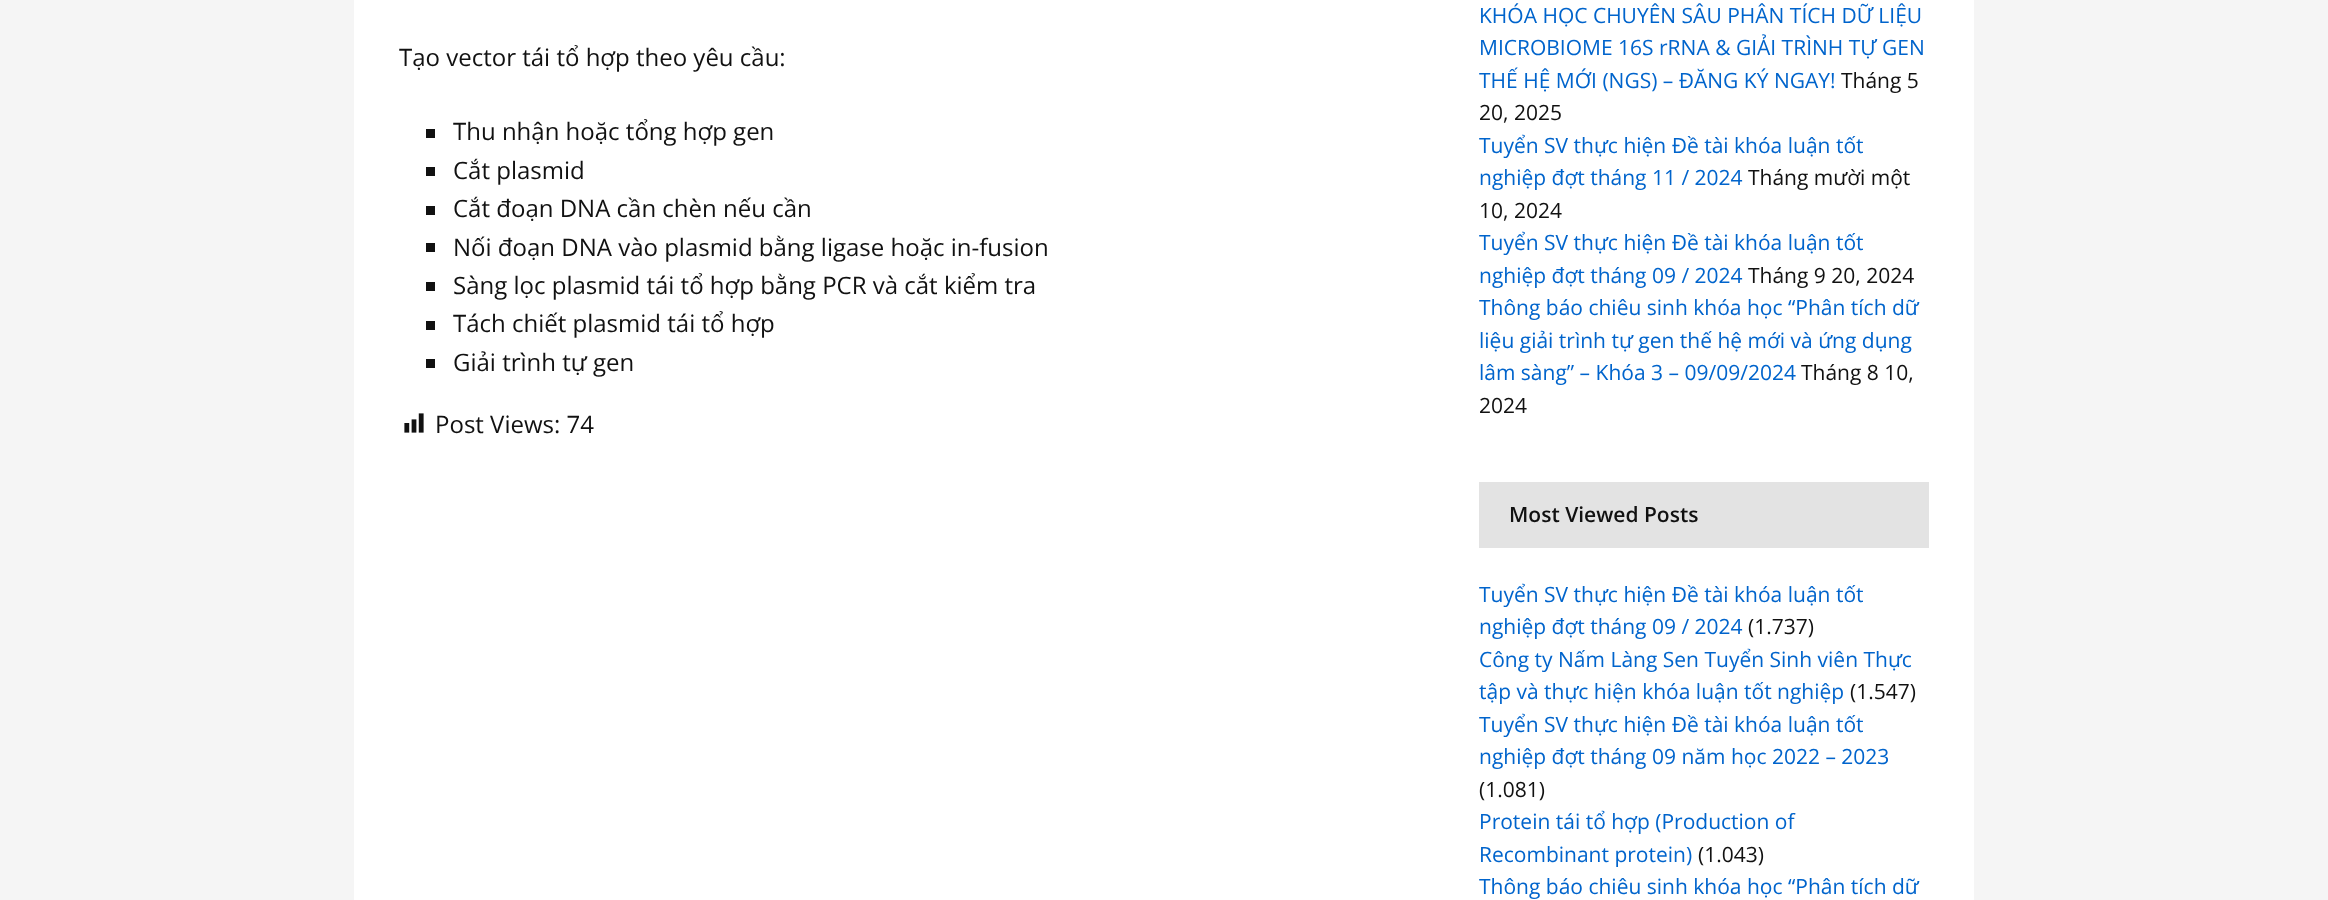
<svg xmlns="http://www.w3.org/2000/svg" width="2328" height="900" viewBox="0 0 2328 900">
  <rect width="100%" height="100%" fill="rgb(245,245,245)"/>
  <rect x="354" y="0" width="1620" height="900" fill="rgb(255,255,255)"/>
  <text x="399" y="66" font-family="Open Sans" font-size="24" fill="rgb(17,17,17)">Tạo vector tái tổ hợp theo yêu cầu:</text>
  <rect x="426" y="129" width="9" height="9" fill="rgb(17,17,17)"/>
  <text x="453" y="140" font-family="Open Sans" font-size="24" fill="rgb(17,17,17)">Thu nhận hoặc tổng hợp gen</text>
  <rect x="426" y="167" width="9" height="9" fill="rgb(17,17,17)"/>
  <text x="453" y="179" font-family="Open Sans" font-size="24" fill="rgb(17,17,17)">Cắt plasmid</text>
  <rect x="426" y="206" width="9" height="9" fill="rgb(17,17,17)"/>
  <text x="453" y="217" font-family="Open Sans" font-size="24" fill="rgb(17,17,17)">Cắt đoạn DNA cần chèn nếu cần</text>
  <rect x="426" y="243" width="9" height="9" fill="rgb(17,17,17)"/>
  <text x="453" y="256" font-family="Open Sans" font-size="24" fill="rgb(17,17,17)">Nối đoạn DNA vào plasmid bằng ligase hoặc in-fusion</text>
  <rect x="426" y="282" width="9" height="9" fill="rgb(17,17,17)"/>
  <text x="453" y="294" font-family="Open Sans" font-size="24" fill="rgb(17,17,17)">Sàng lọc plasmid tái tổ hợp bằng PCR và cắt kiểm tra</text>
  <rect x="426" y="321" width="9" height="9" fill="rgb(17,17,17)"/>
  <text x="453" y="332" font-family="Open Sans" font-size="24" fill="rgb(17,17,17)">Tách chiết plasmid tái tổ hợp</text>
  <rect x="426" y="359" width="9" height="9" fill="rgb(17,17,17)"/>
  <text x="453" y="371" font-family="Open Sans" font-size="24" fill="rgb(17,17,17)">Giải trình tự gen</text>
  <image x="404" y="413" width="20" height="20" href="pic1.png"/>
  <text x="435" y="433" font-family="Open Sans" font-size="24" fill="rgb(17,17,17)">Post Views: 74</text>
  <g font-family="Open Sans" font-size="21" fill="rgb(0,100,204)">
    <text>
      <tspan x="1479" y="23">KHÓA HỌC CHUYÊN SÂU PHÂN TÍCH DỮ LIỆU</tspan>
      <tspan x="1479" y="55">MICROBIOME 16S rRNA &amp; GIẢI TRÌNH TỰ GEN</tspan>
      <tspan x="1479" y="88">THẾ HỆ MỚI (NGS) – ĐĂNG KÝ NGAY!</tspan>
    </text>
  </g>
  <g font-family="Open Sans" font-size="21" fill="rgb(17,17,17)">
    <text x="1841" y="88">Tháng 5</text>
    <text x="1479" y="120">20, 2025</text>
  </g>
  <g font-family="Open Sans" font-size="21" fill="rgb(0,100,204)">
    <text>
      <tspan x="1479" y="153">Tuyển SV thực hiện Đề tài khóa luận tốt</tspan>
      <tspan x="1479" y="185">nghiệp đợt tháng 11 / 2024</tspan>
    </text>
  </g>
  <g font-family="Open Sans" font-size="21" fill="rgb(17,17,17)">
    <text x="1748" y="185">Tháng mười một</text>
    <text x="1479" y="218">10, 2024</text>
  </g>
  <g font-family="Open Sans" font-size="21" fill="rgb(0,100,204)">
    <text>
      <tspan x="1479" y="250">Tuyển SV thực hiện Đề tài khóa luận tốt</tspan>
      <tspan x="1479" y="283">nghiệp đợt tháng 09 / 2024</tspan>
    </text>
  </g>
  <text x="1748" y="283" font-family="Open Sans" font-size="21" fill="rgb(17,17,17)">Tháng 9 20, 2024</text>
  <g font-family="Open Sans" font-size="21" fill="rgb(0,100,204)">
    <text>
      <tspan x="1479" y="315">Thông báo chiêu sinh khóa học “Phân tích dữ</tspan>
      <tspan x="1479" y="348">liệu giải trình tự gen thế hệ mới và ứng dụng</tspan>
      <tspan x="1479" y="380">lâm sàng” – Khóa 3 – 09/09/2024</tspan>
    </text>
  </g>
  <g font-family="Open Sans" font-size="21" fill="rgb(17,17,17)">
    <text x="1801" y="380">Tháng 8 10,</text>
    <text x="1479" y="413">2024</text>
  </g>
  <rect x="1479" y="482" width="450" height="66" fill="rgb(227,227,227)"/>
  <text x="1509" y="522" font-family="Open Sans" font-size="21" font-weight="600" fill="rgb(17,17,17)">Most Viewed Posts</text>
  <g font-family="Open Sans" font-size="21" fill="rgb(0,100,204)">
    <text>
      <tspan x="1479" y="602">Tuyển SV thực hiện Đề tài khóa luận tốt</tspan>
      <tspan x="1479" y="634">nghiệp đợt tháng 09 / 2024</tspan>
    </text>
  </g>
  <text x="1748" y="634" font-family="Open Sans" font-size="21" fill="rgb(17,17,17)">(1.737)</text>
  <g font-family="Open Sans" font-size="21" fill="rgb(0,100,204)">
    <text>
      <tspan x="1479" y="667">Công ty Nấm Làng Sen Tuyển Sinh viên Thực</tspan>
      <tspan x="1479" y="699">tập và thực hiện khóa luận tốt nghiệp</tspan>
    </text>
  </g>
  <text x="1850" y="699" font-family="Open Sans" font-size="21" fill="rgb(17,17,17)">(1.547)</text>
  <g font-family="Open Sans" font-size="21" fill="rgb(0,100,204)">
    <text>
      <tspan x="1479" y="732">Tuyển SV thực hiện Đề tài khóa luận tốt</tspan>
      <tspan x="1479" y="764">nghiệp đợt tháng 09 năm học 2022 – 2023</tspan>
    </text>
  </g>
  <text x="1479" y="797" font-family="Open Sans" font-size="21" fill="rgb(17,17,17)">(1.081)</text>
  <g font-family="Open Sans" font-size="21" fill="rgb(0,100,204)">
    <text>
      <tspan x="1479" y="829">Protein tái tổ hợp (Production of</tspan>
      <tspan x="1479" y="862">Recombinant protein)</tspan>
    </text>
  </g>
  <text x="1698" y="862" font-family="Open Sans" font-size="21" fill="rgb(17,17,17)">(1.043)</text>
  <text x="1479" y="894" font-family="Open Sans" font-size="21" fill="rgb(0,100,204)">Thông báo chiêu sinh khóa học “Phân tích dữ</text>
</svg>
